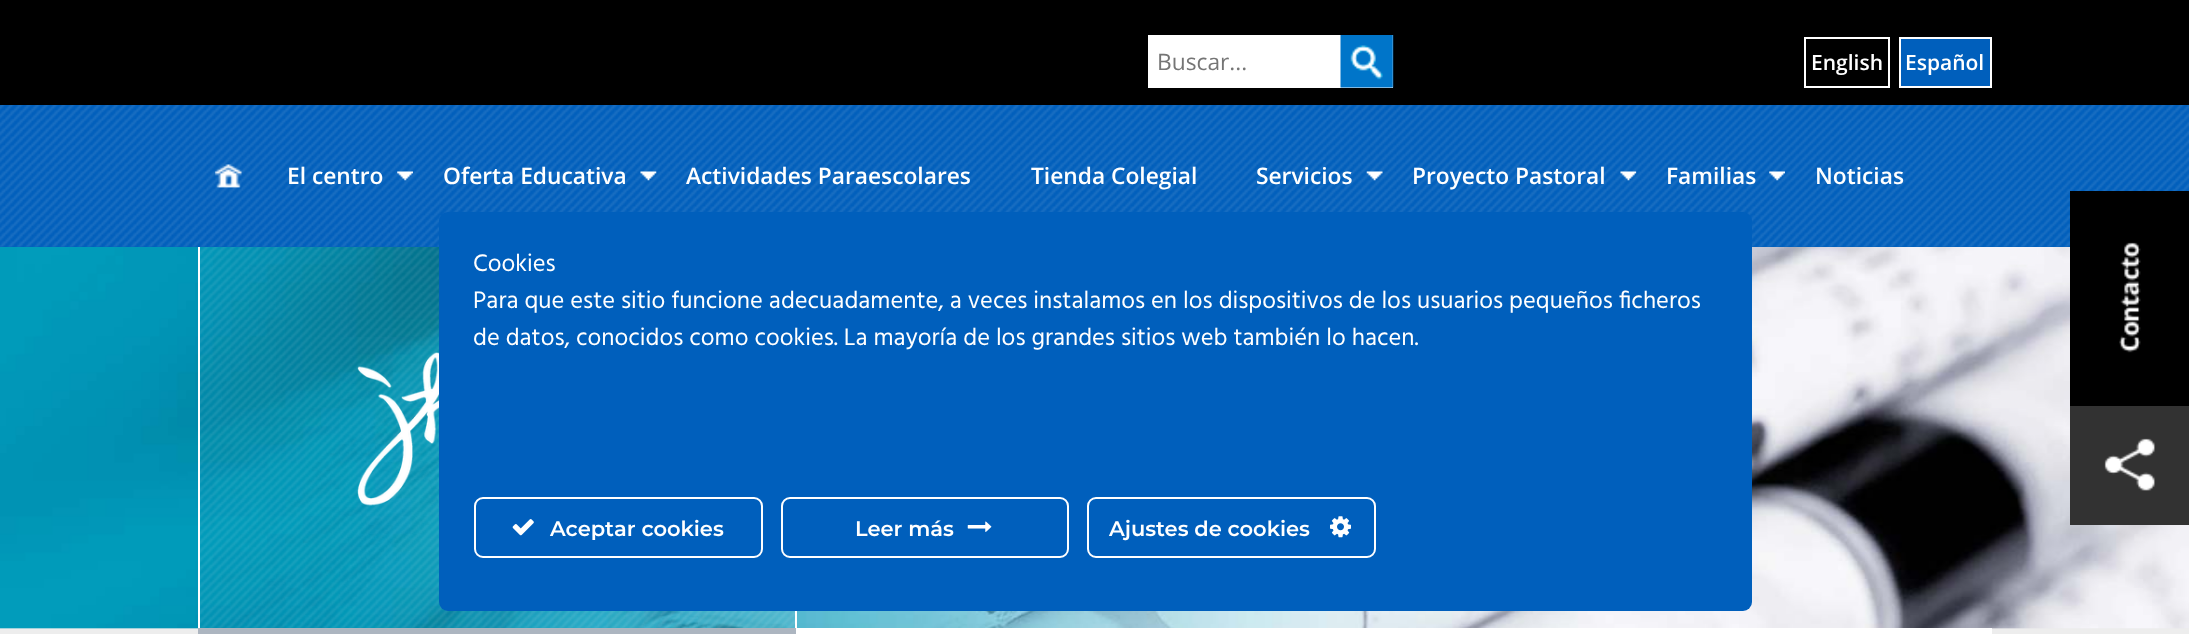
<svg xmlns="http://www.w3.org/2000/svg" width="2189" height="634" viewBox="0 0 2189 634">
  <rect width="100%" height="100%" fill="rgb(237,237,237)"/>
  <rect x="0" y="0" width="2189" height="105" fill="rgb(0,0,0)"/>
  <rect x="1148" y="35" width="245" height="53" fill="rgb(255,255,255)"/>
  <text x="1157" y="70" font-family="Open Sans" font-size="22.75" fill="rgb(117,117,117)">Buscar...</text>
  <image x="1340" y="35" width="54" height="53" href="pic1.png"/>
  <rect x="1805" y="38" width="84" height="49" fill="none" stroke="rgb(255,255,255)" stroke-width="2"/>
  <text x="1811" y="70" font-family="Open Sans" font-size="21" font-weight="600" fill="rgb(255,255,255)">English</text>
  <rect x="1900" y="38" width="91" height="49" fill="rgb(0,95,188)" stroke="rgb(255,255,255)" stroke-width="2"/>
  <text x="1905" y="70" font-family="Open Sans" font-size="21" font-weight="600" fill="rgb(255,255,255)">Español</text>
  <rect x="0" y="105" width="2189" height="142" fill="rgb(0,95,188)"/>
  <image x="0" y="105" width="2189" height="142" href="pic2.png"/>
  <image x="215" y="164" width="27" height="24" href="pic3.png"/>
  <image x="397" y="171" width="16" height="10" href="pic4.png"/>
  <text x="287" y="184" font-family="Open Sans" font-size="22.75" font-weight="600" fill="rgb(255,255,255)">El centro</text>
  <image x="640" y="171" width="17" height="10" href="pic5.png"/>
  <g font-family="Open Sans" font-size="22.75" font-weight="600" fill="rgb(255,255,255)">
    <text x="443" y="184">Oferta Educativa</text>
    <text x="686" y="184">Actividades Paraescolares</text>
    <text x="1031" y="184">Tienda Colegial</text>
  </g>
  <image x="1366" y="171" width="17" height="10" href="pic6.png"/>
  <text x="1256" y="184" font-family="Open Sans" font-size="22.75" font-weight="600" fill="rgb(255,255,255)">Servicios</text>
  <image x="1620" y="171" width="17" height="10" href="pic7.png"/>
  <text x="1412" y="184" font-family="Open Sans" font-size="22.75" font-weight="600" fill="rgb(255,255,255)">Proyecto Pastoral</text>
  <image x="1769" y="171" width="16" height="10" href="pic8.png"/>
  <g font-family="Open Sans" font-size="22.75" font-weight="600" fill="rgb(255,255,255)">
    <text x="1666" y="184">Familias</text>
    <text x="1815" y="184">Noticias</text>
  </g>
  <image x="0" y="247" width="2189" height="382" href="pic11.png"/>
  <rect x="2070" y="191" width="119" height="215" fill="rgb(0,0,0)"/>
  <image x="2119" y="242" width="22" height="111" href="pic9.png"/>
  <rect x="2070" y="406" width="119" height="119" fill="rgb(50,50,50)"/>
  <image x="2104" y="438" width="51" height="53" href="pic10.png"/>
  <image x="200" y="247" width="595" height="381" href="pic12.png"/>
  <rect x="795" y="611" width="2" height="17" fill="rgb(255,255,255)"/>
  <rect x="198" y="247" width="2" height="381" fill="rgb(255,255,255)"/>
  <image x="357" y="352" width="82" height="154" href="pic13.png"/>
  <rect x="198" y="628" width="598" height="6" fill="rgb(172,181,192)"/>
  <rect x="796" y="628" width="1196" height="6" fill="rgb(255,255,255)"/>
  <rect x="439" y="212" width="1313" height="399" rx="9" fill="rgb(0,95,188)"/>
  <g font-family="Hind" font-size="24.5" fill="rgb(255,255,255)">
    <text>
      <tspan x="473" y="271">Cookies</tspan>
      <tspan x="473" y="308">Para que este sitio funcione adecuadamente, a veces instalamos en los dispositivos de los usuarios pequeños ficheros</tspan>
      <tspan x="473" y="345">de datos, conocidos como cookies. La mayoría de los grandes sitios web también lo hacen.</tspan>
    </text>
  </g>
  <rect x="475" y="498" width="287" height="59" rx="8" fill="none" stroke="rgb(255,255,255)" stroke-width="2"/>
  <image x="512" y="519" width="22" height="17" href="pic14.png"/>
  <text x="550" y="536" font-family="Montserrat" font-size="21" font-weight="600" fill="rgb(255,255,255)">Aceptar cookies</text>
  <rect x="782" y="498" width="286" height="59" rx="8" fill="none" stroke="rgb(255,255,255)" stroke-width="2"/>
  <text x="855" y="536" font-family="Montserrat" font-size="21" font-weight="600" fill="rgb(255,255,255)">Leer más</text>
  <image x="967" y="521" width="25" height="11" href="pic15.png"/>
  <rect x="1088" y="498" width="287" height="59" rx="8" fill="none" stroke="rgb(255,255,255)" stroke-width="2"/>
  <text x="1109" y="536" font-family="Montserrat" font-size="21" font-weight="600" fill="rgb(255,255,255)">Ajustes de cookies</text>
  <image x="1330" y="516" width="21" height="22" href="pic16.png"/>
</svg>
